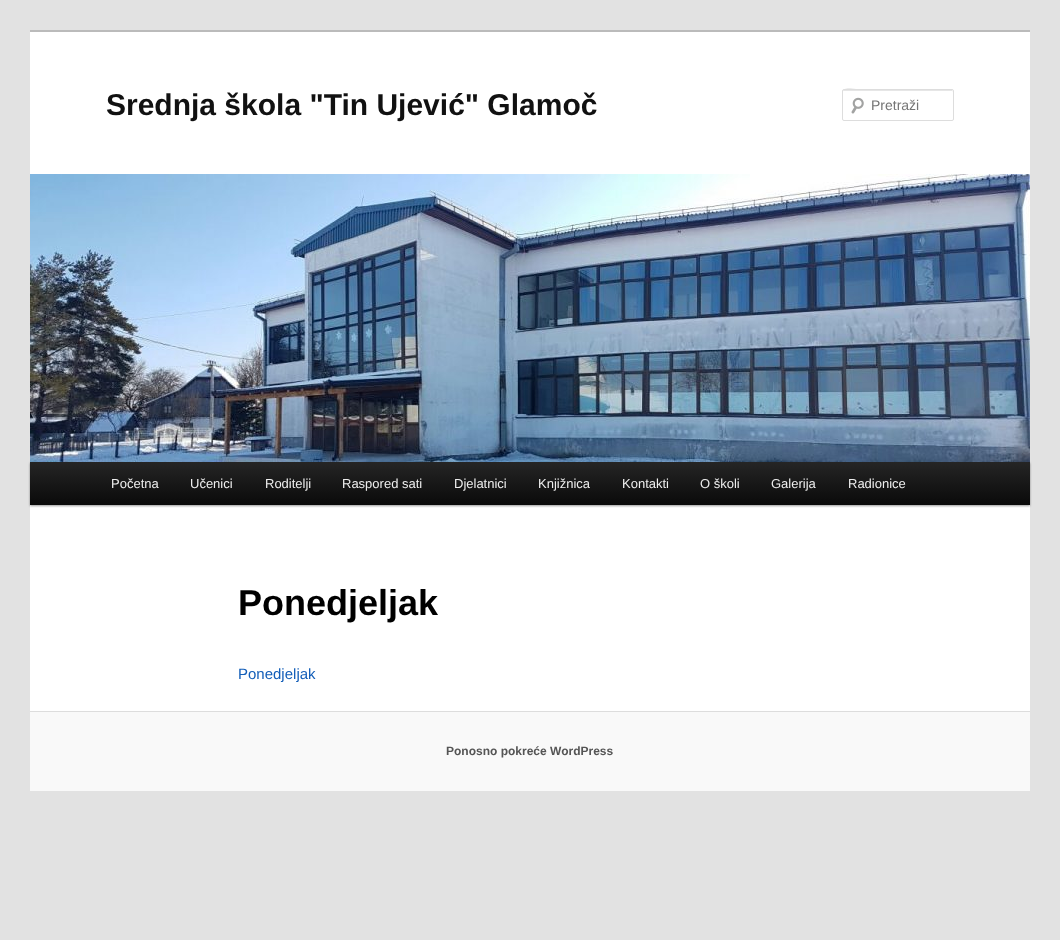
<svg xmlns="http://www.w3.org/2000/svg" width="1060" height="940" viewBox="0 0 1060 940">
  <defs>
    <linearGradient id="g1" gradientUnits="userSpaceOnUse" x1="530" y1="462" x2="530" y2="505"><stop offset="0" stop-color="rgb(37,37,37)"/><stop offset="1" stop-color="rgb(10,10,10)"/></linearGradient>
  </defs>
  <rect width="100%" height="100%" fill="rgb(226,226,226)"/>
  <rect x="30" y="32" width="1000" height="679" fill="rgb(255,255,255)"/>
  <rect x="30" y="30" width="1000" height="2" fill="rgb(187,187,187)"/>
  <text x="106" y="115" font-family="Liberation Sans" font-size="30" font-weight="bold" fill="rgb(17,17,17)">Srednja škola "Tin Ujević" Glamoč</text>
  <image x="851" y="97" width="13" height="17" href="pic1.png"/>
  <path d="M844 91H953V92L952 90H862C858 90 843 85 843 92C843 91 843 91 844 91Z" fill="rgb(230,230,230)"/>
  <rect x="842.5" y="89.5" width="111" height="31" rx="1.5" fill="none" stroke="rgb(221,221,221)"/>
  <text x="871" y="110" font-family="Liberation Sans" font-size="14" fill="rgb(117,117,117)">Pretraži</text>
  <rect x="30" y="463" width="1000" height="43" fill="rgba(0,0,0,0.4)" filter="blur(1px)"/>
  <image x="30" y="174" width="1000" height="288" href="pic2.png"/>
  <rect x="30" y="462" width="1000" height="43" fill="url(#g1)"/>
  <g font-family="Liberation Sans" font-size="13" fill="rgb(238,238,238)">
    <text x="111" y="488">Početna</text>
    <text x="190" y="488">Učenici</text>
    <text x="265" y="488">Roditelji</text>
    <text x="342" y="488">Raspored sati</text>
    <text x="454" y="488">Djelatnici</text>
    <text x="538" y="488">Knjižnica</text>
    <text x="622" y="488">Kontakti</text>
    <text x="700" y="488">O školi</text>
    <text x="771" y="488">Galerija</text>
    <text x="848" y="488">Radionice</text>
  </g>
  <text x="238" y="615" font-family="Liberation Sans" font-size="36" font-weight="bold" fill="rgb(0,0,0)">Ponedjeljak</text>
  <text x="238" y="679" font-family="Liberation Sans" font-size="15" fill="rgb(19,94,184)">Ponedjeljak</text>
  <rect x="30" y="712" width="1000" height="79" fill="rgb(249,249,249)"/>
  <rect x="30" y="711" width="1000" height="1" fill="rgb(221,221,221)"/>
  <text x="446" y="755" font-family="Liberation Sans" font-size="12" font-weight="bold" fill="rgb(85,85,85)">Ponosno pokreće WordPress</text>
</svg>
